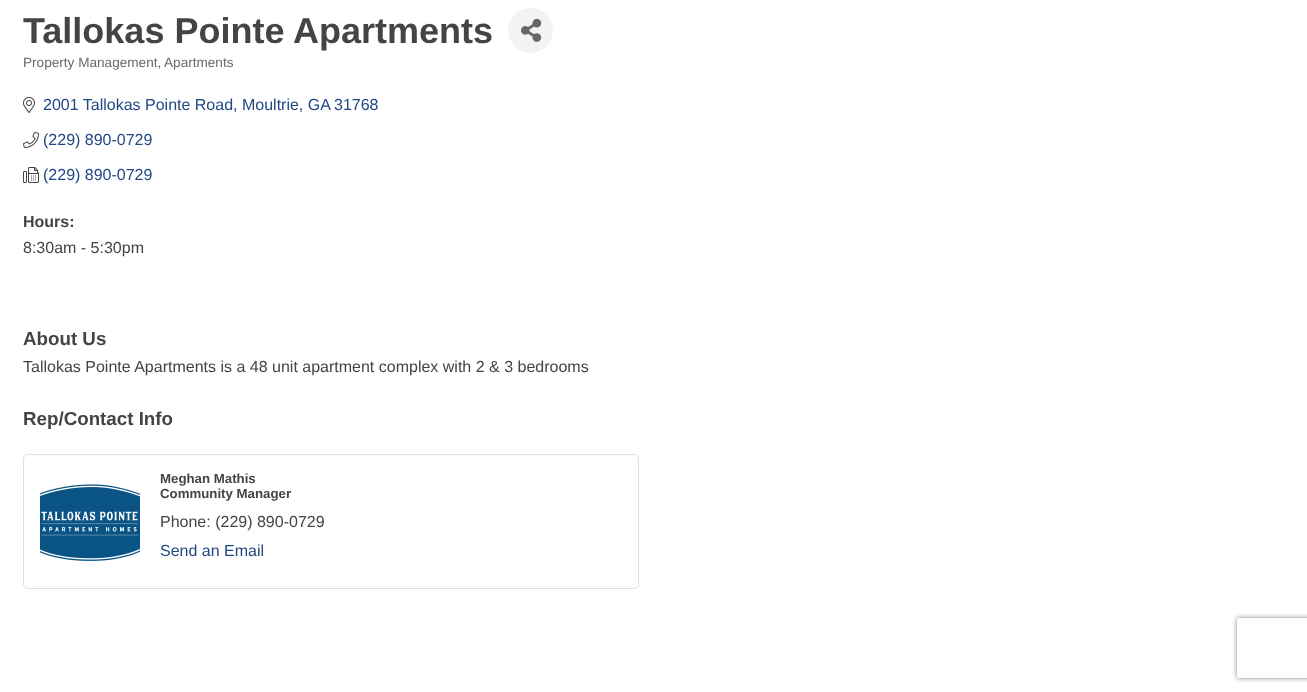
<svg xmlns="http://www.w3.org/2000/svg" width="1307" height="692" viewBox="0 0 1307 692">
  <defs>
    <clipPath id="clip1"><path d="M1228 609H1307V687H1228ZM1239 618H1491C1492 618 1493 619 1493 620V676C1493 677 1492 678 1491 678H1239C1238 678 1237 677 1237 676V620C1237 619 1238 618 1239 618Z" clip-rule="evenodd"/></clipPath>
  </defs>
  <rect width="100%" height="100%" fill="rgb(255,255,255)"/>
  <text x="23" y="43" font-family="Liberation Sans" font-size="36" font-weight="bold" fill="rgb(68,68,68)">Tallokas Pointe Apartments</text>
  <circle cx="530.5" cy="30.5" r="22.5" fill="rgb(243,243,243)"/>
  <image x="521" y="18" width="21" height="24" href="pic1.png"/>
  <g font-family="Liberation Sans" font-size="13.6" fill="rgb(105,105,105)">
    <text x="23" y="67">Property Management,</text>
    <text x="164" y="67">Apartments</text>
  </g>
  <image x="23" y="97" width="12" height="16" href="pic2.png"/>
  <g font-family="Liberation Sans" font-size="16" fill="rgb(34,72,132)">
    <text x="43" y="110">2001 Tallokas Pointe Road, Moultrie, GA</text>
    <text x="334" y="110">31768</text>
  </g>
  <image x="23" y="132" width="16" height="16" href="pic3.png"/>
  <text x="43" y="145" font-family="Liberation Sans" font-size="16" fill="rgb(34,72,132)">(229) 890-0729</text>
  <image x="23" y="167" width="16" height="16" href="pic4.png"/>
  <text x="43" y="180" font-family="Liberation Sans" font-size="16" fill="rgb(34,72,132)">(229) 890-0729</text>
  <text x="23" y="227" font-family="Liberation Sans" font-size="16" font-weight="bold" fill="rgb(68,68,68)">Hours:</text>
  <text x="23" y="253" font-family="Liberation Sans" font-size="16" fill="rgb(68,68,68)">8:30am - 5:30pm</text>
  <text x="23" y="345" font-family="Liberation Sans" font-size="18.75" font-weight="bold" fill="rgb(68,68,68)">About Us</text>
  <text x="23" y="372" font-family="Liberation Sans" font-size="16" fill="rgb(68,68,68)">Tallokas Pointe Apartments is a 48 unit apartment complex with 2 &amp; 3 bedrooms</text>
  <text x="23" y="425" font-family="Liberation Sans" font-size="18.75" font-weight="bold" fill="rgb(68,68,68)">Rep/Contact Info</text>
  <rect x="23.5" y="454.5" width="615" height="134" rx="4.5" fill="none" stroke="rgb(223,223,223)"/>
  <image x="40" y="484" width="100" height="77" href="pic5.png"/>
  <g font-family="Liberation Sans" font-size="13.25" font-weight="bold" fill="rgb(68,68,68)">
    <text>
      <tspan x="160" y="483">Meghan Mathis</tspan>
      <tspan x="160" y="498">Community Manager</tspan>
    </text>
  </g>
  <text x="160" y="527" font-family="Liberation Sans" font-size="16" fill="rgb(68,68,68)">Phone: (229) 890-0729</text>
  <text x="160" y="556" font-family="Liberation Sans" font-size="16" fill="rgb(34,72,132)">Send an Email</text>
  <g clip-path="url(#clip1)">
    <rect x="1237" y="618" width="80" height="60" rx="2" fill="rgb(128,128,128)" filter="blur(2.5px)"/>
  </g>
</svg>
